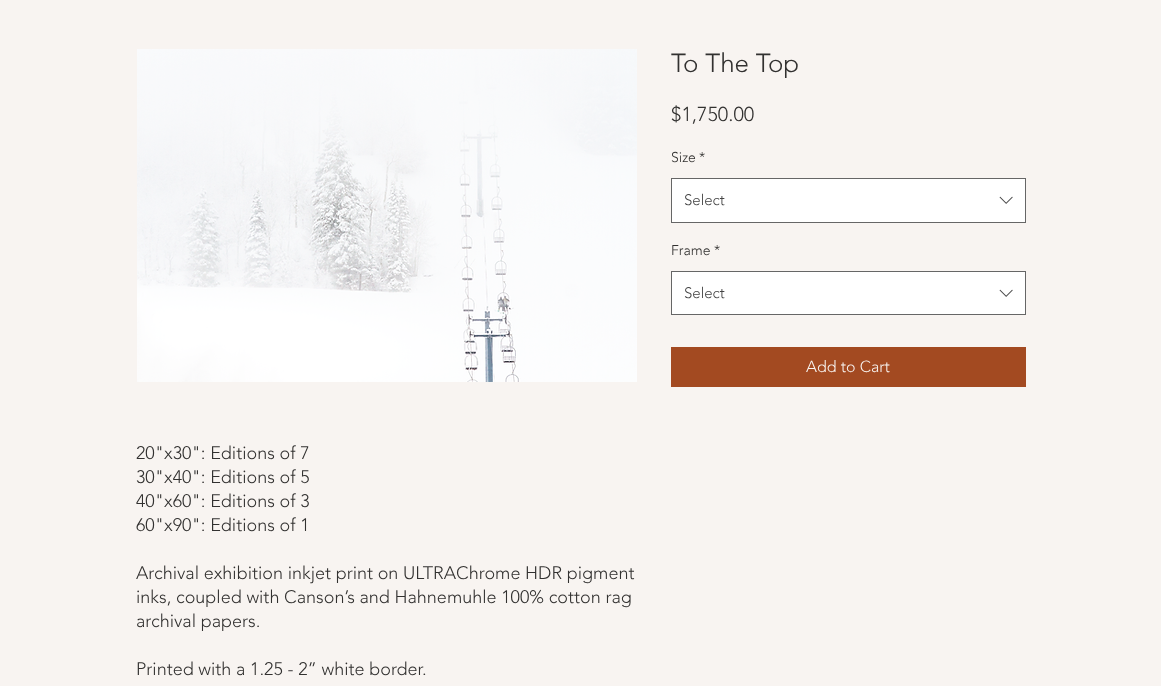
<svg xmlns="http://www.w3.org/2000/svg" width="1161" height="686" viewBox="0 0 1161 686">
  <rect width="100%" height="100%" fill="rgb(248,244,241)"/>
  <text x="671" y="72" font-family="'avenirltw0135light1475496'" font-size="26" font-weight="300" fill="rgb(50,49,48)">To The Top</text>
  <text x="671" y="121" font-family="'avenirltw0135light1475496'" font-size="20" font-weight="300" fill="rgb(50,49,48)">$1,750.00</text>
  <g font-family="'avenirltw0135light1475496'" font-size="14" font-weight="300" fill="rgb(50,49,48)">
    <text x="671" y="162">Size</text>
    <text x="699" y="162">*</text>
  </g>
  <rect x="671.5" y="178.5" width="354" height="44" fill="rgb(255,255,255)" stroke="rgb(102,102,102)"/>
  <text x="684" y="205" font-family="'avenirltw0135light1475496'" font-size="15" font-weight="300" fill="rgb(68,68,68)">Select</text>
  <image x="999" y="196" width="14" height="8" href="pic1.png"/>
  <g font-family="'avenirltw0135light1475496'" font-size="14" font-weight="300" fill="rgb(50,49,48)">
    <text x="671" y="255">Frame</text>
    <text x="714" y="255">*</text>
  </g>
  <rect x="671.5" y="271.5" width="354" height="43" fill="rgb(255,255,255)" stroke="rgb(102,102,102)"/>
  <text x="684" y="298" font-family="'avenirltw0135light1475496'" font-size="15" font-weight="300" fill="rgb(68,68,68)">Select</text>
  <image x="999" y="289" width="14" height="8" href="pic1.png"/>
  <rect x="671" y="347" width="355" height="40" fill="rgb(163,74,33)"/>
  <text x="806" y="372" font-family="'avenirltw0135light1475496'" font-size="16" font-weight="300" fill="rgb(248,244,241)">Add to Cart</text>
  <image x="137" y="49" width="500" height="333" href="pic2.png"/>
  <g font-family="'avenirltw0135light1475496'" font-size="18" font-weight="300" fill="rgb(50,49,48)">
    <text>
      <tspan x="136" y="459">20"x30": Editions of 7</tspan>
      <tspan x="136" y="483">30"x40": Editions of 5</tspan>
      <tspan x="136" y="507">40"x60": Editions of 3</tspan>
      <tspan x="136" y="531">60"x90": Editions of 1</tspan>
    </text>
    <text>
      <tspan x="136" y="579">Archival exhibition inkjet print on ULTRAChrome HDR pigment</tspan>
      <tspan x="136" y="603">inks, coupled with Canson’s and Hahnemuhle 100% cotton rag</tspan>
      <tspan x="136" y="627">archival papers.</tspan>
    </text>
    <text x="136" y="675">Printed with a 1.25 - 2” white border.</text>
  </g>
</svg>
